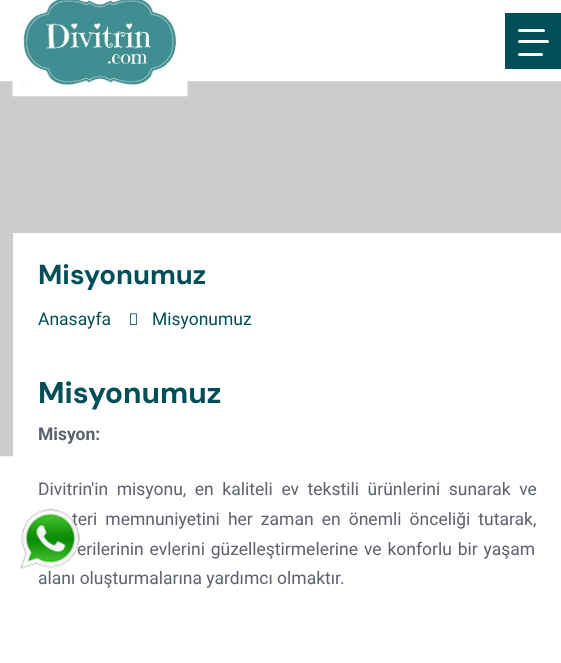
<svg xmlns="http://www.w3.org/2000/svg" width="561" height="663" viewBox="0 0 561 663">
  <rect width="100%" height="100%" fill="rgb(255,255,255)"/>
  <image x="0" y="81" width="561" height="376" href="pic2.png"/>
  <image x="12" y="0" width="176" height="97" href="pic1.png"/>
  <rect x="505" y="13" width="56" height="56" fill="rgb(0,78,87)"/>
  <rect x="518" y="29" width="27" height="3" rx="1.5" fill="rgb(255,255,255)"/>
  <rect x="518" y="40" width="31" height="3" rx="1.5" fill="rgb(255,255,255)"/>
  <rect x="518" y="53" width="25" height="3" rx="1.5" fill="rgb(255,255,255)"/>
  <rect x="13" y="233" width="548" height="224" fill="rgb(255,255,255)"/>
  <text x="38" y="284" font-family="DM Sans" font-size="27.5" font-weight="bold" fill="rgb(0,78,87)">Misyonumuz</text>
  <text x="38" y="325" font-family="Roboto" font-size="17.5" fill="rgb(0,78,87)">Anasayfa</text>
  <image x="130" y="313" width="7" height="12" href="pic3.png"/>
  <text x="152" y="325" font-family="Roboto" font-size="17.5" fill="rgb(0,78,87)">Misyonumuz</text>
  <text x="38" y="403" font-family="DM Sans" font-size="30" font-weight="bold" fill="rgb(0,78,87)">Misyonumuz</text>
  <text x="38" y="440" font-family="Roboto" font-size="17.5" font-weight="bold" fill="rgb(94,98,111)">Misyon:</text>
  <g font-family="Roboto" font-size="17.5" fill="rgb(94,98,111)">
    <text x="38" y="495" word-spacing="4.25">Divitrin'in misyonu, en kaliteli ev tekstili ürünlerini sunarak ve</text>
    <text x="72" y="525" word-spacing="3.75">teri memnuniyetini her zaman en önemli önceliği tutarak,</text>
    <text x="77" y="555" word-spacing="1.5">erilerinin evlerini güzelleştirmelerine ve konforlu bir yaşam</text>
    <text x="38" y="584">alanı oluşturmalarına yardımcı olmaktır.</text>
  </g>
  <image x="20" y="508" width="61" height="61" href="pic4.png"/>
</svg>
